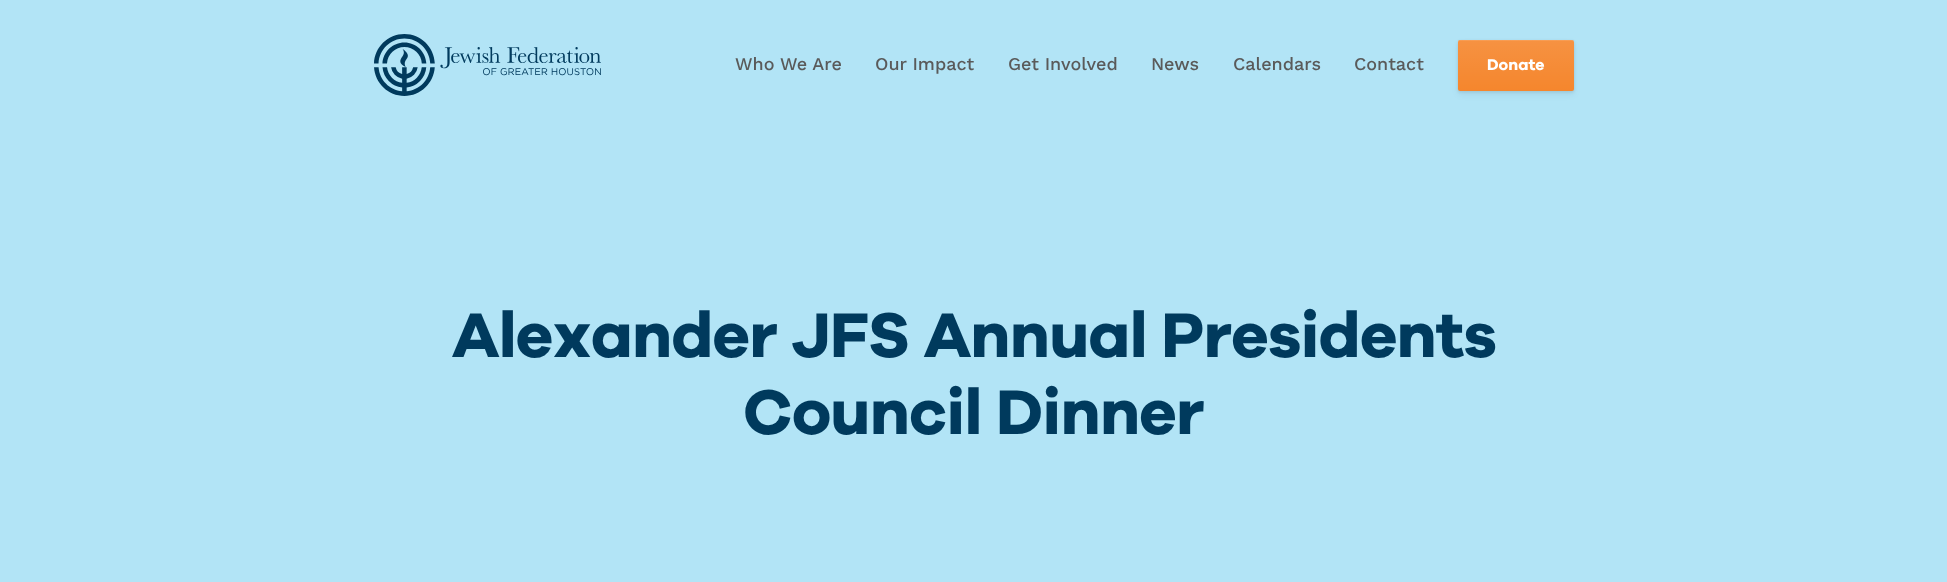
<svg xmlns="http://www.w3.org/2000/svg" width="1947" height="582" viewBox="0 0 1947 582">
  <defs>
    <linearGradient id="g1" gradientUnits="userSpaceOnUse" x1="1516" y1="40" x2="1516" y2="91"><stop offset="0" stop-color="rgb(255,255,255)" stop-opacity="0.1"/><stop offset="1" stop-color="rgb(255,255,255)" stop-opacity="0"/></linearGradient>
  </defs>
  <rect width="100%" height="100%" fill="rgb(178,228,246)"/>
  <image x="374" y="34" width="227" height="62" href="pic1.png"/>
  <g font-family="Work Sans" font-size="18" font-weight="500" fill="rgb(90,90,90)">
    <text x="735" y="70">Who We Are</text>
    <text x="875" y="70">Our Impact</text>
    <text x="1008" y="70">Get Involved</text>
    <text x="1151" y="70">News</text>
    <text x="1233" y="70">Calendars</text>
    <text x="1354" y="70">Contact</text>
  </g>
  <rect x="1458" y="44" width="116" height="51" rx="2" fill="rgba(0,0,0,0.05)" filter="blur(3px)"/>
  <rect x="1458" y="41" width="116" height="51" rx="2" fill="rgba(0,0,0,0.1)" filter="blur(1.5px)"/>
  <rect x="1458" y="40" width="116" height="51" rx="2" fill="rgb(245,134,45)"/>
  <rect x="1458" y="40" width="116" height="51" rx="2" fill="url(#g1)"/>
  <path d="M1460 41H1572C1573 41 1574 42 1574 43C1574 42 1574 40 1572 40H1460C1458 40 1458 42 1458 43C1458 42 1459 41 1460 41Z" fill="rgba(255,255,255,0.1)"/>
  <text x="1487" y="70" font-family="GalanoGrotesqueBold" font-size="16" fill="rgb(255,255,255)">Donate</text>
  <g font-family="GalanoGrotesqueBold" font-size="65" letter-spacing="-0.75" fill="rgb(0,58,93)">
    <text x="452" y="357">Alexander JFS Annual Presidents</text>
    <text x="743" y="434">Council Dinner</text>
  </g>
</svg>
